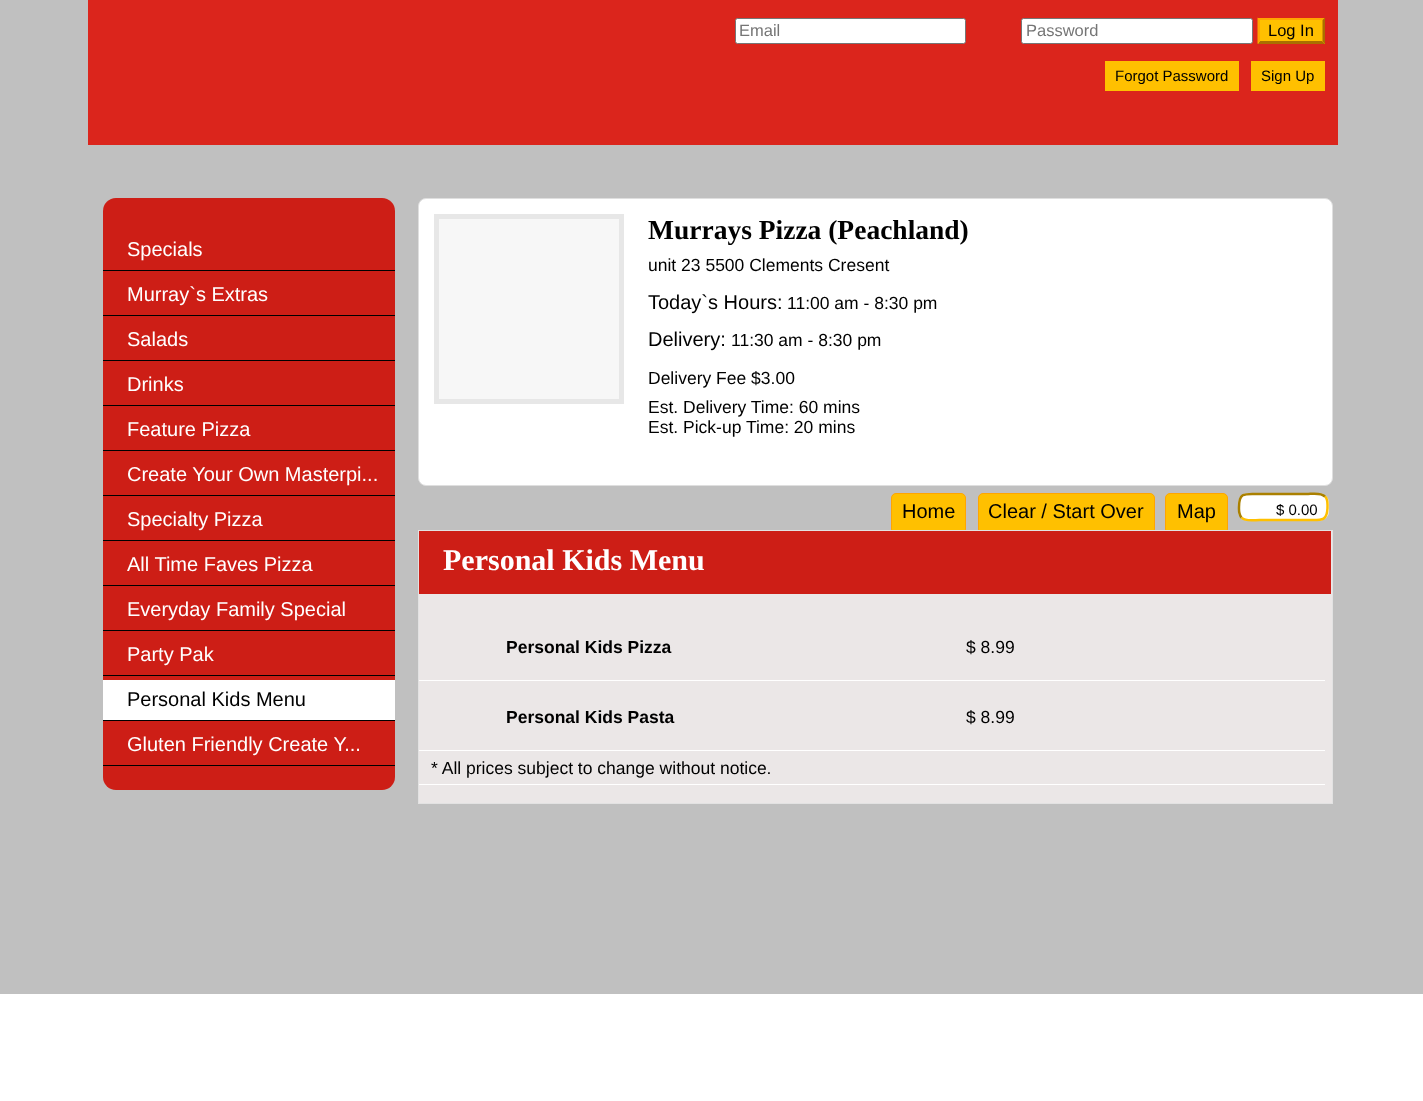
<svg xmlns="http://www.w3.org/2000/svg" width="1423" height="1101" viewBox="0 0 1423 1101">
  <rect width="100%" height="100%" fill="rgb(255,255,255)"/>
  <rect x="0" y="0" width="1423" height="994" fill="rgb(192,192,192)"/>
  <rect x="88" y="0" width="1250" height="145" fill="rgb(219,37,28)"/>
  <rect x="735.5" y="18.5" width="230" height="25" rx="2" fill="rgb(255,255,255)" stroke="rgb(118,118,118)"/>
  <text x="739" y="36" font-family="Liberation Sans" font-size="16.5" fill="rgb(117,117,117)">Email</text>
  <rect x="1021.5" y="18.5" width="231" height="25" rx="2" fill="rgb(255,255,255)" stroke="rgb(118,118,118)"/>
  <text x="1026" y="36" font-family="Liberation Sans" font-size="16.5" fill="rgb(117,117,117)">Password</text>
  <rect x="1258" y="18" width="67" height="26" fill="rgb(255,192,0)"/>
  <path d="M1258 18H1325L1322 20H1260Z" fill="rgb(255,165,0)"/>
  <path d="M1325 17.5V44L1322.5 41V20Z" fill="rgb(170,110,0)"/>
  <path d="M1325 44H1258L1260 41H1322Z" fill="rgb(170,110,0)"/>
  <path d="M1257.5 44V17.5L1260 20V41Z" fill="rgb(255,165,0)"/>
  <text x="1268" y="36" font-family="Liberation Sans" font-size="16.5" fill="rgb(0,0,0)">Log In</text>
  <rect x="1105" y="61" width="134" height="30" fill="rgb(255,192,0)"/>
  <text x="1115" y="81" font-family="Liberation Sans" font-size="15" fill="rgb(0,0,0)">Forgot Password</text>
  <rect x="1251" y="61" width="74" height="30" fill="rgb(255,192,0)"/>
  <text x="1261" y="81" font-family="Liberation Sans" font-size="15" fill="rgb(0,0,0)">Sign Up</text>
  <rect x="103" y="198" width="292" height="592" rx="13" fill="rgb(205,30,22)"/>
  <rect x="103" y="270" width="292" height="1" fill="rgb(0,0,0)"/>
  <text x="127" y="256" font-family="Liberation Sans" font-size="20" fill="rgb(255,255,255)">Specials</text>
  <rect x="103" y="315" width="292" height="1" fill="rgb(0,0,0)"/>
  <text x="127" y="301" font-family="Liberation Sans" font-size="20" fill="rgb(255,255,255)">Murray`s Extras</text>
  <rect x="103" y="360" width="292" height="1" fill="rgb(0,0,0)"/>
  <text x="127" y="346" font-family="Liberation Sans" font-size="20" fill="rgb(255,255,255)">Salads</text>
  <rect x="103" y="405" width="292" height="1" fill="rgb(0,0,0)"/>
  <text x="127" y="391" font-family="Liberation Sans" font-size="20" fill="rgb(255,255,255)">Drinks</text>
  <rect x="103" y="450" width="292" height="1" fill="rgb(0,0,0)"/>
  <text x="127" y="436" font-family="Liberation Sans" font-size="20" fill="rgb(255,255,255)">Feature Pizza</text>
  <rect x="103" y="495" width="292" height="1" fill="rgb(0,0,0)"/>
  <text x="127" y="481" font-family="Liberation Sans" font-size="20" fill="rgb(255,255,255)">Create Your Own Masterpi...</text>
  <rect x="103" y="540" width="292" height="1" fill="rgb(0,0,0)"/>
  <text x="127" y="526" font-family="Liberation Sans" font-size="20" fill="rgb(255,255,255)">Specialty Pizza</text>
  <rect x="103" y="585" width="292" height="1" fill="rgb(0,0,0)"/>
  <text x="127" y="571" font-family="Liberation Sans" font-size="20" fill="rgb(255,255,255)">All Time Faves Pizza</text>
  <rect x="103" y="630" width="292" height="1" fill="rgb(0,0,0)"/>
  <text x="127" y="616" font-family="Liberation Sans" font-size="20" fill="rgb(255,255,255)">Everyday Family Special</text>
  <rect x="103" y="675" width="292" height="1" fill="rgb(0,0,0)"/>
  <text x="127" y="661" font-family="Liberation Sans" font-size="20" fill="rgb(255,255,255)">Party Pak</text>
  <rect x="103" y="680" width="292" height="40" fill="rgb(255,255,255)"/>
  <rect x="103" y="720" width="292" height="1" fill="rgb(0,0,0)"/>
  <text x="127" y="706" font-family="Liberation Sans" font-size="20" fill="rgb(0,0,0)">Personal Kids Menu</text>
  <rect x="103" y="765" width="292" height="1" fill="rgb(0,0,0)"/>
  <text x="127" y="751" font-family="Liberation Sans" font-size="20" fill="rgb(255,255,255)">Gluten Friendly Create Y...</text>
  <rect x="418.5" y="198.5" width="914" height="287" rx="7.5" fill="rgb(255,255,255)" stroke="rgb(223,223,223)"/>
  <rect x="436.5" y="216.5" width="185" height="185" fill="rgb(247,247,247)" stroke="rgb(231,231,231)" stroke-width="5"/>
  <text x="648" y="239" font-family="Liberation Serif" font-size="27.5" font-weight="bold" fill="rgb(0,0,0)">Murrays Pizza (Peachland)</text>
  <text x="648" y="271" font-family="Liberation Sans" font-size="17.5" fill="rgb(0,0,0)">unit 23 5500 Clements Cresent</text>
  <text x="648" y="309" font-family="Liberation Sans" font-size="20" fill="rgb(0,0,0)">Today`s Hours:</text>
  <text x="787" y="309" font-family="Liberation Sans" font-size="17.5" fill="rgb(0,0,0)">11:00 am - 8:30 pm</text>
  <text x="648" y="346" font-family="Liberation Sans" font-size="20" fill="rgb(0,0,0)">Delivery:</text>
  <g font-family="Liberation Sans" font-size="17.5" fill="rgb(0,0,0)">
    <text x="731" y="346">11:30 am - 8:30 pm</text>
    <text>
      <tspan x="648" y="384">Delivery Fee $3.00</tspan>
      <tspan x="648" y="413">Est. Delivery Time: 60 mins</tspan>
      <tspan x="648" y="433">Est. Pick-up Time: 20 mins</tspan>
    </text>
  </g>
  <rect x="891.5" y="493.5" width="74" height="40" rx="4.5" fill="rgb(255,192,0)" stroke="rgb(255,165,0)"/>
  <text x="902" y="518" font-family="Liberation Sans" font-size="20" fill="rgb(0,0,0)">Home</text>
  <rect x="978.5" y="493.5" width="176" height="40" rx="4.5" fill="rgb(255,192,0)" stroke="rgb(255,165,0)"/>
  <text x="988" y="518" font-family="Liberation Sans" font-size="20" fill="rgb(0,0,0)">Clear / Start Over</text>
  <rect x="1165.5" y="493.5" width="62" height="40" rx="4.5" fill="rgb(255,192,0)" stroke="rgb(255,165,0)"/>
  <text x="1177" y="518" font-family="Liberation Sans" font-size="20" fill="rgb(0,0,0)">Map</text>
  <rect x="1238" y="493" width="91" height="28" rx="10" fill="rgb(255,255,255)"/>
  <path d="M1325 496.5C1328 499 1327.5 503 1327.5 507C1327.5 522 1321 520 1307 520H1259.5C1254.5 520 1245.5 522 1241.5 517.5" fill="none" stroke="rgb(255,192,0)" stroke-width="2.5"/>
  <path d="M1241.5 517.5C1238.5 514.5 1239 510.5 1239 507C1239 491.5 1245.5 494 1259.5 494H1307C1311.5 494 1320.5 492 1325 496.5" fill="none" stroke="rgb(170,128,0)" stroke-width="2.5"/>
  <text x="1276" y="515" font-family="Liberation Sans" font-size="15" fill="rgb(0,0,0)">$ 0.00</text>
  <rect x="418.5" y="530.5" width="914" height="273" fill="rgb(235,231,231)" stroke="rgb(226,226,226)"/>
  <rect x="419" y="531" width="912" height="63" fill="rgb(205,30,22)"/>
  <text x="443" y="570" font-family="Liberation Serif" font-size="30" font-weight="bold" fill="rgb(255,255,255)">Personal Kids Menu</text>
  <rect x="419" y="680" width="906" height="1" fill="rgb(255,255,255)"/>
  <text x="506" y="653" font-family="Liberation Sans" font-size="17.5" font-weight="bold" fill="rgb(0,0,0)">Personal Kids Pizza</text>
  <text x="966" y="653" font-family="Liberation Sans" font-size="17.5" fill="rgb(0,0,0)">$ 8.99</text>
  <rect x="419" y="750" width="906" height="1" fill="rgb(255,255,255)"/>
  <text x="506" y="723" font-family="Liberation Sans" font-size="17.5" font-weight="bold" fill="rgb(0,0,0)">Personal Kids Pasta</text>
  <text x="966" y="723" font-family="Liberation Sans" font-size="17.5" fill="rgb(0,0,0)">$ 8.99</text>
  <rect x="419" y="784" width="906" height="1" fill="rgb(255,255,255)"/>
  <text x="431" y="774" font-family="Liberation Sans" font-size="17.5" fill="rgb(0,0,0)">* All prices subject to change without notice.</text>
</svg>
